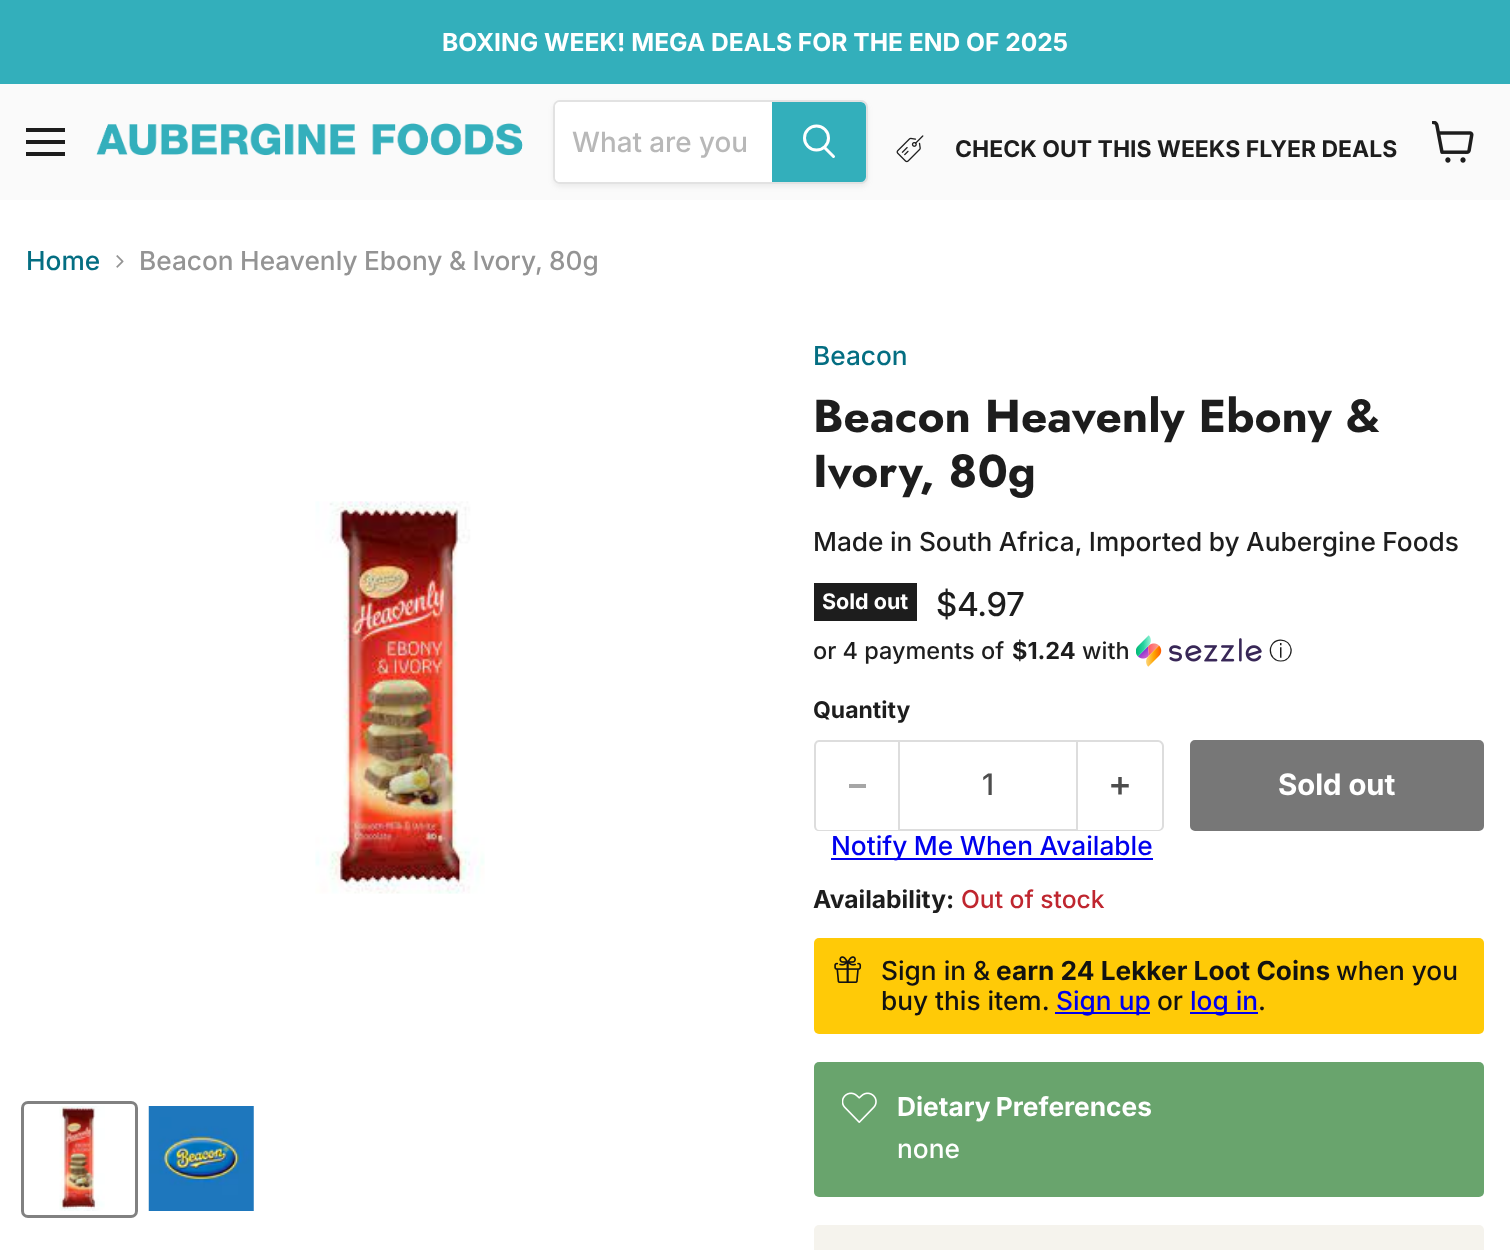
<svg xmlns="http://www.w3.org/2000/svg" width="1510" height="1250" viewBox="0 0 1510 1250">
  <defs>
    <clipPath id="clip1"><path d="M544 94H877V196H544ZM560 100H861C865 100 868 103 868 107V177C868 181 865 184 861 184H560C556 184 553 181 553 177V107C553 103 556 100 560 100Z" clip-rule="evenodd"/></clipPath>
  </defs>
  <rect width="100%" height="100%" fill="rgb(255,255,255)"/>
  <rect x="0" y="0" width="1510" height="84" fill="rgb(51,175,187)"/>
  <text x="442" y="51" font-family="Inter" font-size="24.6" font-weight="bold" fill="rgb(255,255,255)">BOXING WEEK! MEGA DEALS FOR THE END OF 2025</text>
  <rect x="0" y="84" width="1510" height="116" fill="rgb(250,250,250)"/>
  <rect x="26" y="128" width="39" height="4" fill="rgb(29,29,29)"/>
  <rect x="26" y="140" width="39" height="4" fill="rgb(29,29,29)"/>
  <rect x="26" y="152" width="39" height="4" fill="rgb(29,29,29)"/>
  <image x="96" y="123" width="427" height="33" href="pic1.png"/>
  <g clip-path="url(#clip1)">
    <rect x="553" y="103" width="315" height="84" rx="7" fill="rgba(128,128,128,0.11)" filter="blur(2.5px)"/>
  </g>
  <rect x="554" y="101" width="313" height="82" rx="6" fill="none" stroke="rgba(128,128,128,0.2)" stroke-width="2"/>
  <path d="M560 102H772V182H560C557 182 555 180 555 177V107C555 104 557 102 560 102Z" fill="rgb(255,255,255)"/>
  <text x="572" y="152" font-family="'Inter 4'" font-size="28" font-weight="500" fill="rgb(184,184,184)">What are you</text>
  <path d="M773 103H861C863 103 865 105 865 107V177C865 179 863 181 861 181H773Z" fill="rgb(51,175,187)" stroke="rgb(51,175,187)" stroke-width="2"/>
  <path d="M833.5 156.5L825 148" fill="none" stroke="rgb(255,255,255)" stroke-width="3" stroke-linecap="round"/>
  <circle cx="816.5" cy="138" r="12" fill="none" stroke="rgb(255,255,255)" stroke-width="3"/>
  <image x="896" y="135" width="28" height="28" href="pic2.png"/>
  <text x="955" y="157" font-family="Inter" font-size="23" font-weight="bold" fill="rgb(29,29,29)">CHECK OUT THIS WEEKS FLYER DEALS</text>
  <image x="1432" y="121" width="42" height="42" href="pic3.png"/>
  <text x="26" y="270" font-family="Inter" font-size="26.25" font-weight="500" fill="rgb(4,110,130)">Home</text>
  <image x="116" y="255" width="8" height="13" href="pic4.png"/>
  <text x="139" y="270" word-spacing="-0.5" font-family="Inter" font-size="26.25" font-weight="500" fill="rgb(148,148,148)">Beacon Heavenly Ebony &amp; Ivory, 80g</text>
  <image x="315" y="501" width="170" height="393" href="pic5.png"/>
  <rect x="22.5" y="1102.5" width="114" height="114" rx="5.5" fill="none" stroke="rgb(129,129,129)" stroke-width="3"/>
  <image x="59" y="1106" width="46" height="105" href="pic6.png"/>
  <image x="148" y="1106" width="106" height="105" href="pic7.png"/>
  <text x="813" y="365" font-family="Inter" font-size="26.25" font-weight="500" fill="rgb(4,110,130)">Beacon</text>
  <g font-family="Jost" font-size="46" font-weight="bold" fill="rgb(29,29,29)">
    <text>
      <tspan x="813" y="432">Beacon Heavenly Ebony &amp;</tspan>
      <tspan x="813" y="487">Ivory, 80g</tspan>
    </text>
  </g>
  <text x="813" y="551" word-spacing="-0.5" font-family="Inter" font-size="26.25" font-weight="500" fill="rgb(29,29,29)">Made in South Africa, Imported by Aubergine Foods</text>
  <rect x="814" y="583" width="103" height="38" fill="rgb(29,29,29)"/>
  <text x="822" y="609" font-family="Inter" font-size="21.5" font-weight="bold" fill="rgb(255,255,255)">Sold out</text>
  <text x="936" y="616" font-family="'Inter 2'" font-size="33" font-weight="500" fill="rgb(29,29,29)">$4.97</text>
  <text x="813" y="659" font-family="Inter" font-size="23.5" font-weight="500" fill="rgb(29,29,29)">or 4 payments of</text>
  <text x="1012" y="659" font-family="Inter" font-size="23.5" font-weight="bold" fill="rgb(29,29,29)">$1.24</text>
  <text x="1082" y="659" font-family="Inter" font-size="23.5" font-weight="500" fill="rgb(29,29,29)">with</text>
  <image x="1136" y="635" width="126" height="32" href="pic8.png"/>
  <text x="1269" y="659" font-family="WenQuanYi Zen Hei" font-size="23.5" font-weight="500" fill="rgb(29,29,29)">ⓘ</text>
  <text x="813" y="718" font-family="Inter" font-size="23" font-weight="bold" fill="rgb(29,29,29)">Quantity</text>
  <path d="M819 740H898V831H819C816 831 814 829 814 826V746C814 743 816 740 819 740ZM819 742H898V830H819C817 830 816 828 816 826V746C816 744 817 742 819 742Z" fill="rgb(221,221,221)" fill-rule="evenodd"/>
  <rect x="849" y="784" width="17" height="4" fill="rgb(166,166,166)"/>
  <rect x="899" y="741" width="178" height="89" fill="none" stroke="rgb(221,221,221)" stroke-width="2"/>
  <text x="982" y="795" font-family="'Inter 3'" font-size="29.5" font-weight="500" fill="rgb(77,77,77)">1</text>
  <path d="M1078 740H1158C1161 740 1164 743 1164 746V826C1164 829 1161 831 1158 831H1078ZM1078 742H1158C1160 742 1162 744 1162 746V826C1162 828 1160 830 1158 830H1078Z" fill="rgb(221,221,221)" fill-rule="evenodd"/>
  <image x="1111" y="777" width="18" height="18" href="pic9.png"/>
  <rect x="1191" y="741" width="292" height="89" rx="4" fill="rgb(119,119,119)" stroke="rgb(119,119,119)" stroke-width="2"/>
  <text x="1278" y="795" font-family="'Inter 2'" font-size="29.5" font-weight="bold" fill="rgb(255,255,255)">Sold out</text>
  <rect x="831" y="858" width="322" height="2" fill="rgb(0,0,238)"/>
  <text x="831" y="855" word-spacing="-0.5" font-family="Inter" font-size="26.25" font-weight="500" fill="rgb(0,0,238)">Notify Me When Available</text>
  <text x="813" y="908" font-family="Inter" font-size="24.6" font-weight="bold" fill="rgb(29,29,29)">Availability:</text>
  <text x="961" y="908" font-family="Inter" font-size="24.6" font-weight="500" fill="rgb(191,38,47)">Out of stock</text>
  <rect x="814" y="938" width="670" height="96" rx="5" fill="rgb(255,202,7)"/>
  <image x="834" y="956" width="28" height="27" href="pic10.png"/>
  <text x="881" y="980" font-family="Inter" font-size="26.25" font-weight="500" fill="rgb(18,18,18)">Sign in &amp;</text>
  <text x="996" y="980" font-family="Inter" font-size="26.25" font-weight="bold" fill="rgb(18,18,18)">earn 24 Lekker Loot Coins</text>
  <g font-family="Inter" font-size="26.25" font-weight="500" fill="rgb(18,18,18)">
    <text x="1336" y="980">when you</text>
    <text x="881" y="1010">buy this item.</text>
  </g>
  <rect x="1055" y="1012" width="95" height="2" fill="rgb(0,0,238)"/>
  <text x="1056" y="1010" font-family="Inter" font-size="26.25" font-weight="500" fill="rgb(0,0,238)">Sign up</text>
  <text x="1157" y="1010" font-family="Inter" font-size="26.25" font-weight="500" fill="rgb(18,18,18)">or</text>
  <rect x="1190" y="1012" width="68" height="2" fill="rgb(0,0,238)"/>
  <text x="1190" y="1010" font-family="Inter" font-size="26.25" font-weight="500" fill="rgb(0,0,238)">log in</text>
  <text x="1258" y="1010" font-family="Inter" font-size="26.25" font-weight="500" fill="rgb(18,18,18)">.</text>
  <rect x="814" y="1062" width="670" height="135" rx="5" fill="rgb(105,164,109)"/>
  <image x="842" y="1092" width="35" height="31" href="pic11.png"/>
  <text x="897" y="1116" word-spacing="-1" font-family="Inter" font-size="26.25" font-weight="bold" fill="rgb(255,255,255)">Dietary Preferences</text>
  <text x="897" y="1158" font-family="Inter" font-size="26.25" font-weight="500" fill="rgb(255,255,255)">none</text>
  <rect x="814" y="1225" width="670" height="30" rx="5" fill="rgb(245,243,237)"/>
</svg>
